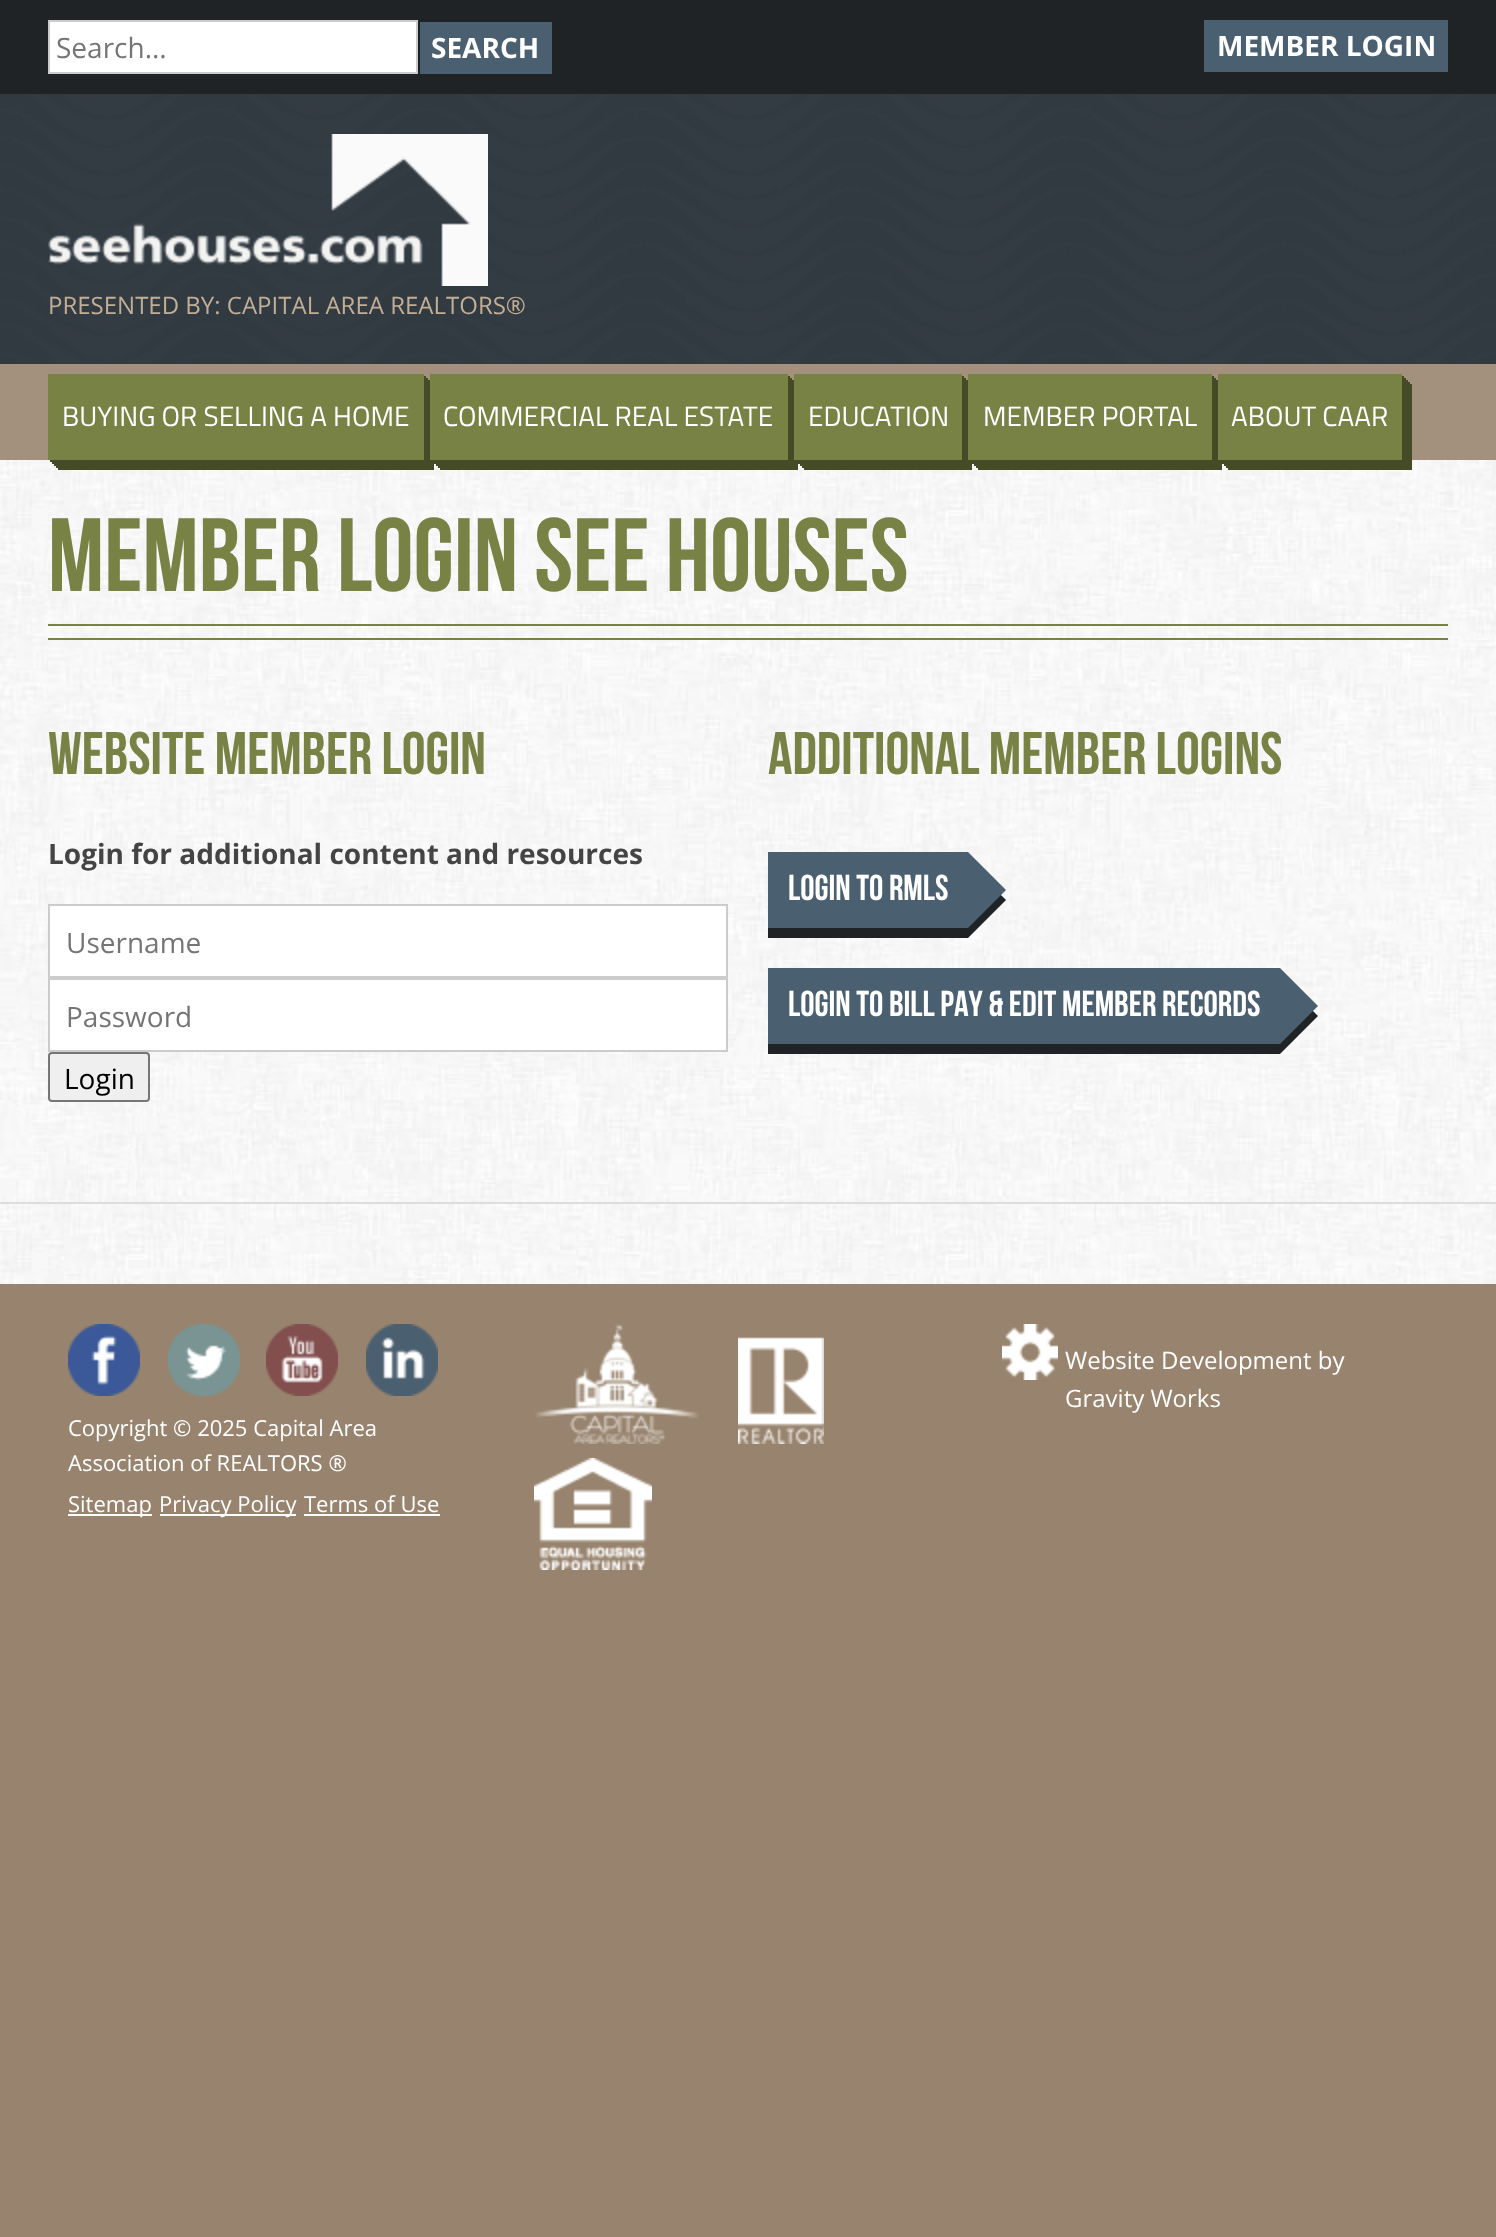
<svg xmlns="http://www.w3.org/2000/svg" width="1496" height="2237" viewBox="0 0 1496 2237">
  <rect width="100%" height="100%" fill="rgb(152,132,110)"/>
  <image x="0" y="94" width="1496" height="270" href="pic1.png"/>
  <rect x="0" y="0" width="1496" height="94" fill="rgb(31,35,38)"/>
  <rect x="49" y="21" width="368" height="52" fill="rgb(255,255,255)" stroke="rgb(204,204,204)" stroke-width="2"/>
  <text x="56" y="58" font-family="Open Sans" font-size="28" fill="rgb(117,117,117)">Search...</text>
  <rect x="420" y="22" width="132" height="52" fill="rgb(74,95,112)"/>
  <text x="431" y="58" font-family="Open Sans" font-size="28" font-weight="bold" fill="rgb(255,255,255)">SEARCH</text>
  <rect x="1204" y="20" width="244" height="52" fill="rgb(74,95,112)"/>
  <text x="1217" y="56" font-family="Open Sans" font-size="28" font-weight="bold" fill="rgb(255,255,255)">MEMBER LOGIN</text>
  <image x="48" y="134" width="440" height="152" href="pic2.png"/>
  <text x="48" y="314" font-family="Open Sans" font-size="24" fill="rgb(194,174,149)">PRESENTED BY: CAPITAL AREA REALTORS®</text>
  <rect x="0" y="364" width="1496" height="96" fill="rgb(163,145,125)"/>
  <image x="0" y="460" width="1496" height="742" href="pic3.png"/>
  <path d="M58 460V470H434V384H424V460Z" fill="rgb(69,75,39)"/>
  <path d="M56 460V468H432V382H424V460Z" fill="rgb(69,75,39)"/>
  <path d="M54 460V466H430V380H424V460Z" fill="rgb(69,75,39)"/>
  <path d="M52 460V464H428V378H424V460Z" fill="rgb(69,75,39)"/>
  <path d="M50 460V462H426V376H424V460Z" fill="rgb(69,75,39)"/>
  <rect x="48" y="374" width="376" height="86" fill="rgb(120,130,69)"/>
  <text x="62" y="426" font-family="Titillium Web" font-size="28" fill="rgb(255,255,255)">BUYING OR SELLING A HOME</text>
  <path d="M440 460V470H798V384H788V460Z" fill="rgb(69,75,39)"/>
  <path d="M438 460V468H796V382H788V460Z" fill="rgb(69,75,39)"/>
  <path d="M436 460V466H794V380H788V460Z" fill="rgb(69,75,39)"/>
  <path d="M434 460V464H792V378H788V460Z" fill="rgb(69,75,39)"/>
  <path d="M432 460V462H790V376H788V460Z" fill="rgb(69,75,39)"/>
  <rect x="430" y="374" width="358" height="86" fill="rgb(120,130,69)"/>
  <text x="443" y="426" font-family="Titillium Web" font-size="28" fill="rgb(255,255,255)">COMMERCIAL REAL ESTATE</text>
  <path d="M804 460V470H972V384H962V460Z" fill="rgb(69,75,39)"/>
  <path d="M802 460V468H970V382H962V460Z" fill="rgb(69,75,39)"/>
  <path d="M800 460V466H968V380H962V460Z" fill="rgb(69,75,39)"/>
  <path d="M798 460V464H966V378H962V460Z" fill="rgb(69,75,39)"/>
  <path d="M796 460V462H964V376H962V460Z" fill="rgb(69,75,39)"/>
  <rect x="794" y="374" width="168" height="86" fill="rgb(120,130,69)"/>
  <text x="808" y="426" font-family="Titillium Web" font-size="28" fill="rgb(255,255,255)">EDUCATION</text>
  <path d="M978 460V470H1222V384H1212V460Z" fill="rgb(69,75,39)"/>
  <path d="M976 460V468H1220V382H1212V460Z" fill="rgb(69,75,39)"/>
  <path d="M974 460V466H1218V380H1212V460Z" fill="rgb(69,75,39)"/>
  <path d="M972 460V464H1216V378H1212V460Z" fill="rgb(69,75,39)"/>
  <path d="M970 460V462H1214V376H1212V460Z" fill="rgb(69,75,39)"/>
  <rect x="968" y="374" width="244" height="86" fill="rgb(120,130,69)"/>
  <text x="983" y="426" font-family="Titillium Web" font-size="28" fill="rgb(255,255,255)">MEMBER PORTAL</text>
  <path d="M1228 460V470H1412V384H1402V460Z" fill="rgb(69,75,39)"/>
  <path d="M1226 460V468H1410V382H1402V460Z" fill="rgb(69,75,39)"/>
  <path d="M1224 460V466H1408V380H1402V460Z" fill="rgb(69,75,39)"/>
  <path d="M1222 460V464H1406V378H1402V460Z" fill="rgb(69,75,39)"/>
  <path d="M1220 460V462H1404V376H1402V460Z" fill="rgb(69,75,39)"/>
  <rect x="1218" y="374" width="184" height="86" fill="rgb(120,130,69)"/>
  <text x="1231" y="426" font-family="Titillium Web" font-size="28" fill="rgb(255,255,255)">ABOUT CAAR</text>
  <rect x="0" y="1202" width="1496" height="2" fill="rgb(221,221,221)"/>
  <rect x="48" y="638" width="1400" height="2" fill="rgb(120,130,69)"/>
  <rect x="48" y="624" width="1400" height="2" fill="rgb(120,130,69)"/>
  <text x="48" y="591" font-family="Bebas Neue" font-size="104" fill="rgb(120,130,69)">Member Login See Houses</text>
  <text x="48" y="774" font-family="Bebas Neue" font-size="60" fill="rgb(120,130,69)">Website Member Login</text>
  <text x="48" y="864" font-family="Open Sans" font-size="28" font-weight="bold" fill="rgb(68,68,68)">Login for additional content and resources</text>
  <rect x="49" y="905" width="678" height="72" fill="rgb(255,255,255)" stroke="rgb(204,204,204)" stroke-width="2"/>
  <text x="66" y="953" font-family="Open Sans" font-size="28" fill="rgb(117,117,117)">Username</text>
  <rect x="49" y="979" width="678" height="72" fill="rgb(255,255,255)" stroke="rgb(204,204,204)" stroke-width="2"/>
  <text x="66" y="1027" font-family="Open Sans" font-size="28" fill="rgb(117,117,117)">Password</text>
  <rect x="49" y="1053" width="100" height="48" rx="3" fill="rgb(239,239,239)" stroke="rgb(118,118,118)" stroke-width="2"/>
  <text x="64" y="1089" font-family="Open Sans" font-size="28" fill="rgb(0,0,0)">Login</text>
  <text x="768" y="774" font-family="Bebas Neue" font-size="60" fill="rgb(120,130,69)">Additional Member Logins</text>
  <rect x="768" y="928" width="200" height="10" fill="rgb(31,35,38)"/>
  <rect x="768" y="852" width="200" height="76" fill="rgb(74,95,112)"/>
  <path d="M968 938V862L1006 900Z" fill="rgb(31,35,38)"/>
  <path d="M968 928V852L1006 890Z" fill="rgb(74,95,112)"/>
  <text x="788" y="900" font-family="Bebas Neue" font-size="36" fill="rgb(255,255,255)">Login to RMLS</text>
  <rect x="768" y="1044" width="512" height="10" fill="rgb(31,35,38)"/>
  <rect x="768" y="968" width="512" height="76" fill="rgb(74,95,112)"/>
  <path d="M1280 1054V978L1318 1016Z" fill="rgb(31,35,38)"/>
  <path d="M1280 1044V968L1318 1006Z" fill="rgb(74,95,112)"/>
  <text x="788" y="1016" font-family="Bebas Neue" font-size="36" fill="rgb(255,255,255)">Login to Bill Pay &amp; Edit Member Records</text>
  <image x="0" y="1204" width="1496" height="80" href="pic4.png"/>
  <image x="535" y="1324" width="164" height="120" href="pic5.png"/>
  <image x="738" y="1337" width="86" height="107" href="pic6.png"/>
  <image x="534" y="1458" width="118" height="112" href="pic7.png"/>
  <image x="1002" y="1324" width="56" height="56" href="pic8.png"/>
  <g font-family="Open Sans" font-size="24" fill="rgb(255,255,255)">
    <text>
      <tspan x="1065" y="1369">Website Development by</tspan>
      <tspan x="1065" y="1407">Gravity Works</tspan>
    </text>
  </g>
  <image x="68" y="1324" width="72" height="72" href="pic9.png"/>
  <image x="168" y="1324" width="72" height="72" href="pic10.png"/>
  <image x="266" y="1324" width="72" height="72" href="pic11.png"/>
  <image x="366" y="1324" width="72" height="72" href="pic12.png"/>
  <g font-family="Open Sans" font-size="22" fill="rgb(255,255,255)">
    <text>
      <tspan x="68" y="1436">Copyright © 2025 Capital Area</tspan>
      <tspan x="68" y="1471">Association of REALTORS ®</tspan>
    </text>
  </g>
  <rect x="68" y="1514" width="84" height="2" fill="rgb(255,255,255)"/>
  <text x="68" y="1512" font-family="Open Sans" font-size="22" fill="rgb(255,255,255)">Sitemap</text>
  <rect x="160" y="1514" width="136" height="2" fill="rgb(255,255,255)"/>
  <g font-family="Open Sans" font-size="22" fill="rgb(255,255,255)">
    <text x="159" y="1512">Privacy Policy</text>
    <text x="304" y="1512">Terms of Use</text>
  </g>
  <rect x="304" y="1514" width="136" height="2" fill="rgb(255,255,255)"/>
</svg>
